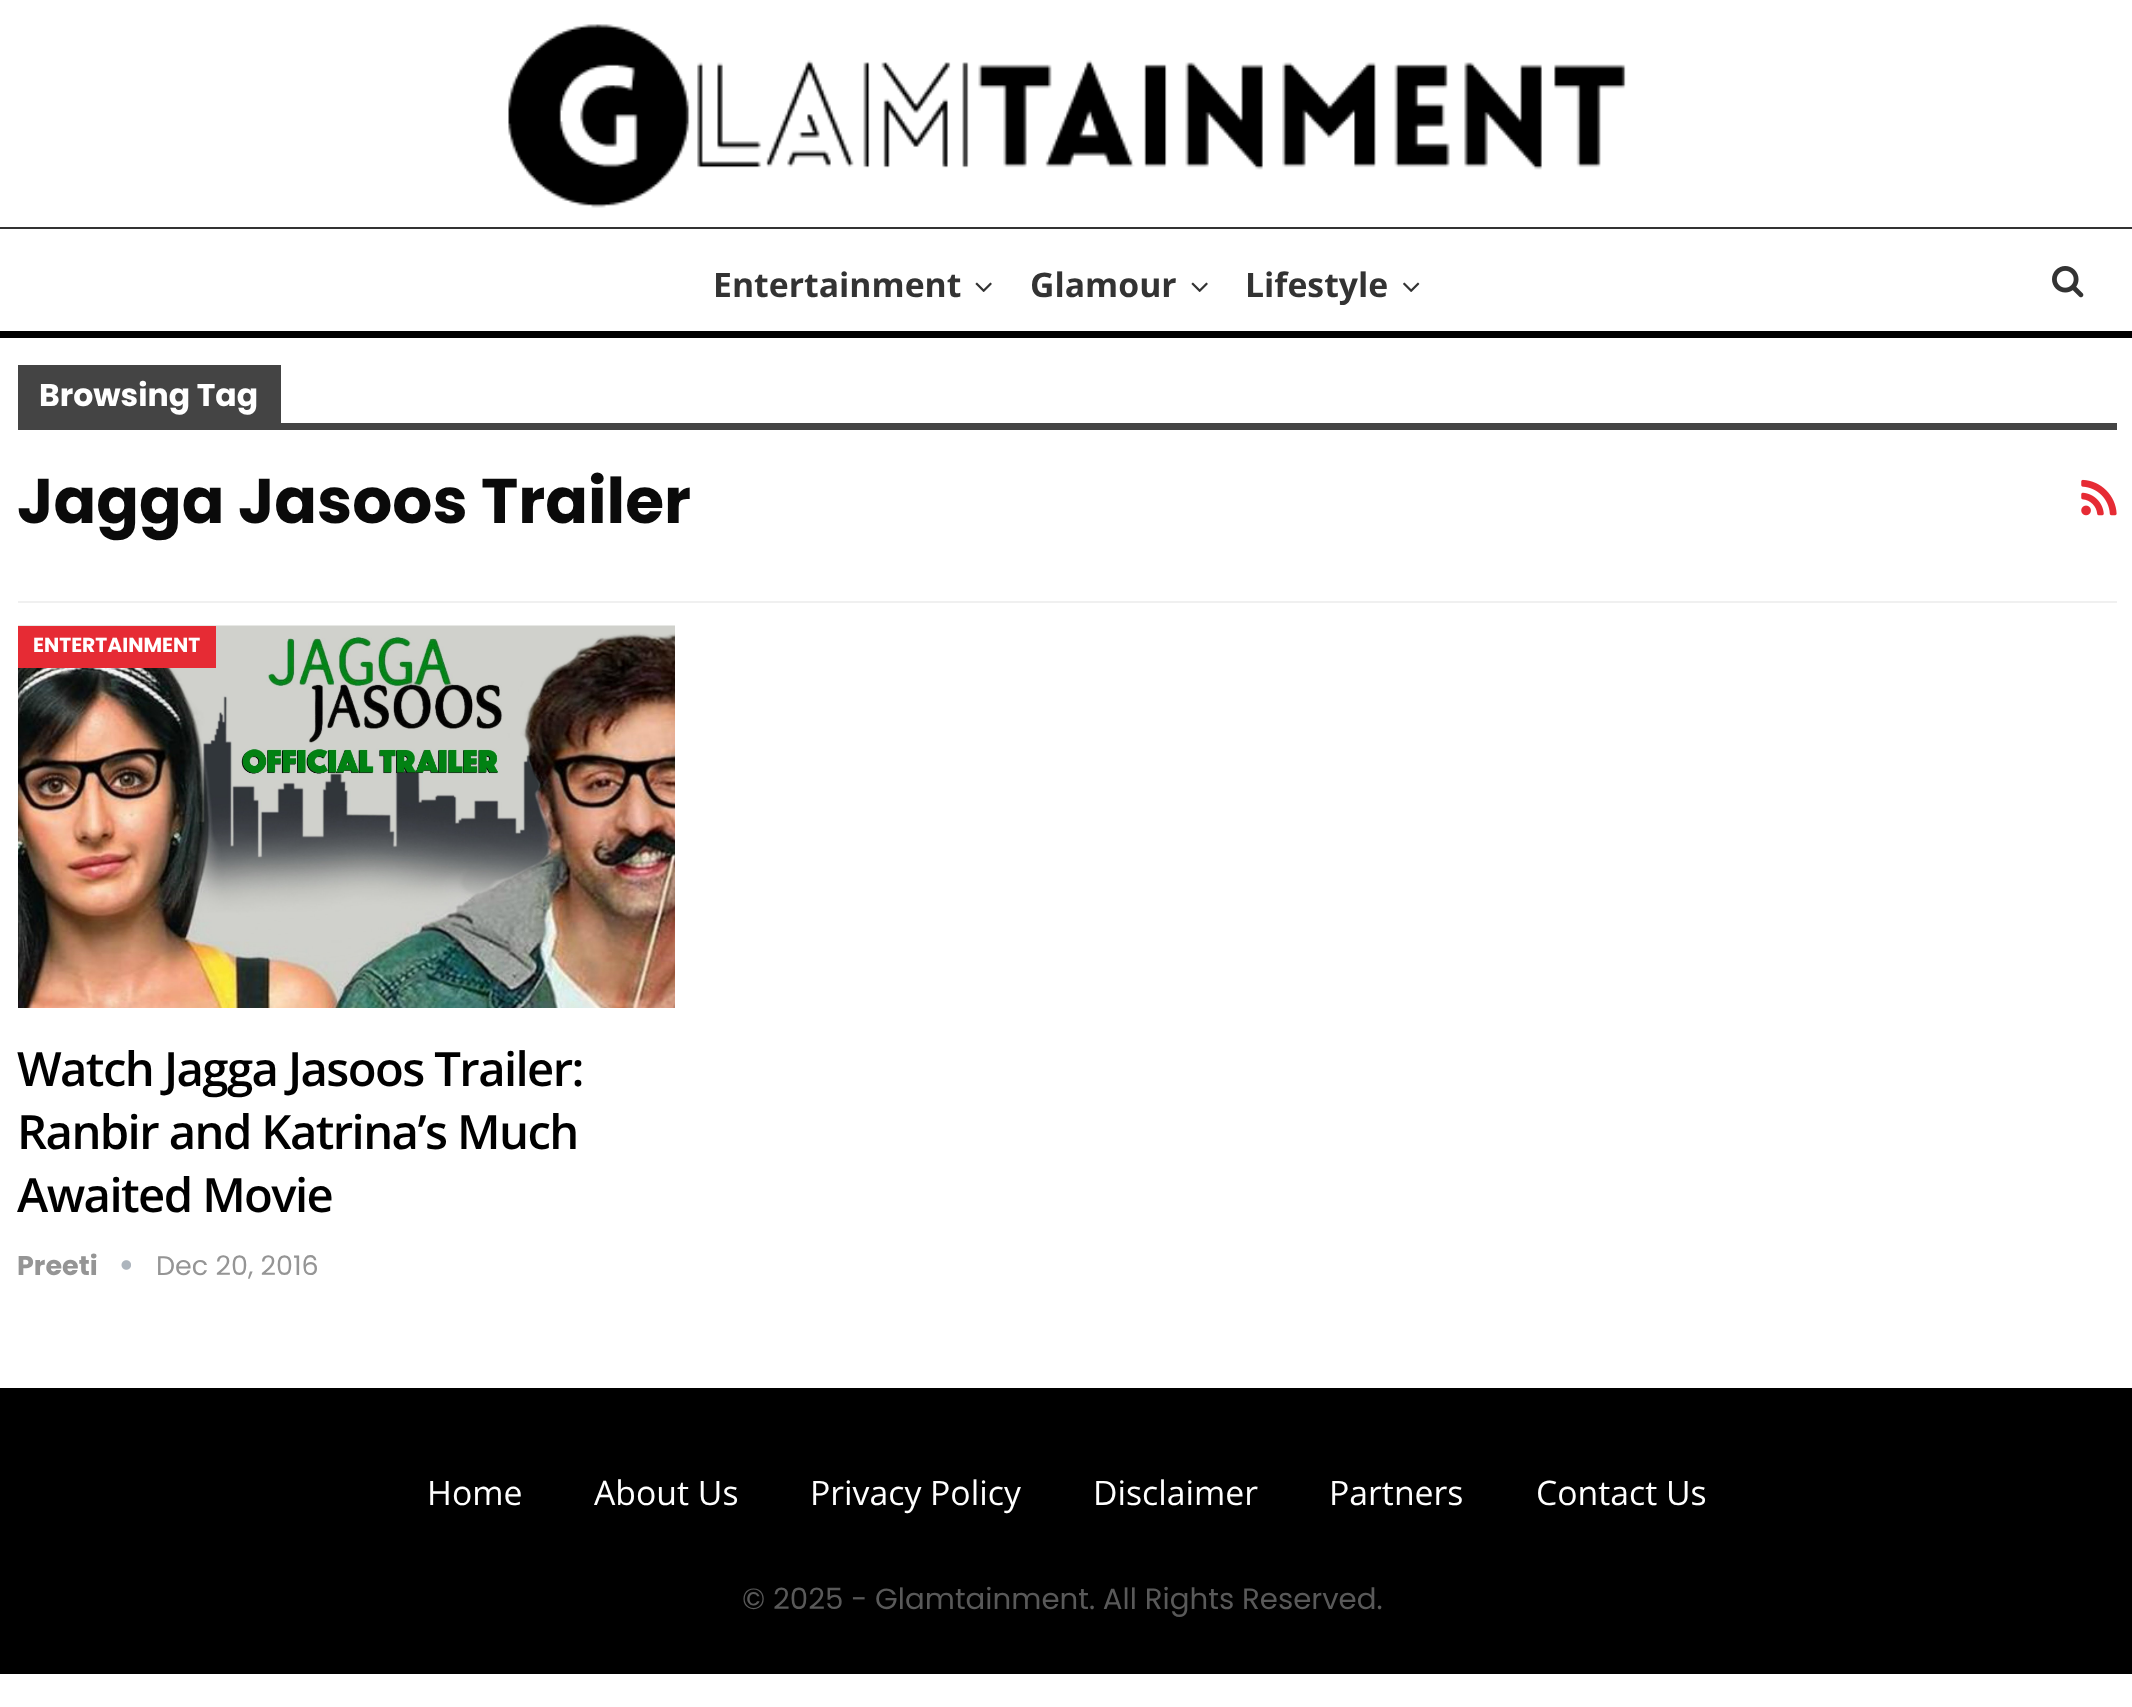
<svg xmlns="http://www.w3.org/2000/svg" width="2132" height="1707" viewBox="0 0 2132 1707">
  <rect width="100%" height="100%" fill="rgb(255,255,255)"/>
  <image x="508" y="24" width="1118" height="184" href="pic1.png"/>
  <rect x="0" y="227" width="2132" height="2" fill="rgb(51,51,51)"/>
  <rect x="0" y="331" width="2132" height="7" fill="rgb(0,0,0)"/>
  <text x="713" y="297" font-family="Open Sans" font-size="33.75" font-weight="bold" fill="rgb(51,51,51)">Entertainment</text>
  <image x="975" y="282" width="17" height="10" href="pic2.png"/>
  <text x="1030" y="297" font-family="Open Sans" font-size="33.75" font-weight="bold" fill="rgb(51,51,51)">Glamour</text>
  <image x="1191" y="282" width="17" height="10" href="pic2.png"/>
  <text x="1245" y="297" font-family="Open Sans" font-size="33.75" font-weight="bold" fill="rgb(51,51,51)">Lifestyle</text>
  <image x="1403" y="282" width="17" height="10" href="pic3.png"/>
  <image x="2052" y="266" width="32" height="32" href="pic4.png"/>
  <rect x="18" y="601" width="2099" height="2" fill="rgb(240,240,240)"/>
  <rect x="18" y="365" width="263" height="58" fill="rgb(68,68,68)"/>
  <text x="39" y="406" font-family="Poppins" font-size="31.5" font-weight="bold" fill="rgb(255,255,255)">Browsing Tag</text>
  <rect x="18" y="423" width="2099" height="7" fill="rgb(68,68,68)"/>
  <text x="17" y="523" font-family="Poppins" font-size="63" font-weight="bold" fill="rgb(10,10,10)">Jagga Jasoos Trailer</text>
  <image x="2081" y="479" width="36" height="37" href="pic5.png"/>
  <image x="18" y="625" width="657" height="383" href="pic6.png"/>
  <rect x="18" y="626" width="198" height="42" fill="rgb(230,43,52)"/>
  <text x="33" y="652" font-family="Poppins" font-size="20.25" font-weight="bold" fill="rgb(255,255,255)">ENTERTAINMENT</text>
  <g font-family="Open Sans" font-size="47.25" font-weight="600" letter-spacing="-1.6" fill="rgb(0,0,0)">
    <text>
      <tspan x="17" y="1086">Watch Jagga Jasoos Trailer:</tspan>
      <tspan x="17" y="1149">Ranbir and Katrina’s Much</tspan>
      <tspan x="17" y="1212">Awaited Movie</tspan>
    </text>
  </g>
  <text x="17" y="1275" font-family="Poppins" font-size="27" font-weight="bold" fill="rgb(149,149,149)">Preeti</text>
  <image x="121" y="1260" width="10" height="10" href="pic7.png"/>
  <text x="156" y="1275" font-family="Poppins" font-size="27" fill="rgb(149,149,149)">Dec 20, 2016</text>
  <rect x="0" y="1388" width="2132" height="286" fill="rgb(0,0,0)"/>
  <g font-family="Open Sans" font-size="33.75" fill="rgb(255,255,255)">
    <text x="427" y="1505">Home</text>
    <text x="594" y="1505">About Us</text>
    <text x="810" y="1505">Privacy Policy</text>
    <text x="1093" y="1505">Disclaimer</text>
    <text x="1329" y="1505">Partners</text>
    <text x="1536" y="1505">Contact Us</text>
  </g>
  <text x="742" y="1609" font-family="Poppins" font-size="29.25" fill="rgb(89,89,89)">© 2025 - Glamtainment. All Rights Reserved.</text>
</svg>
